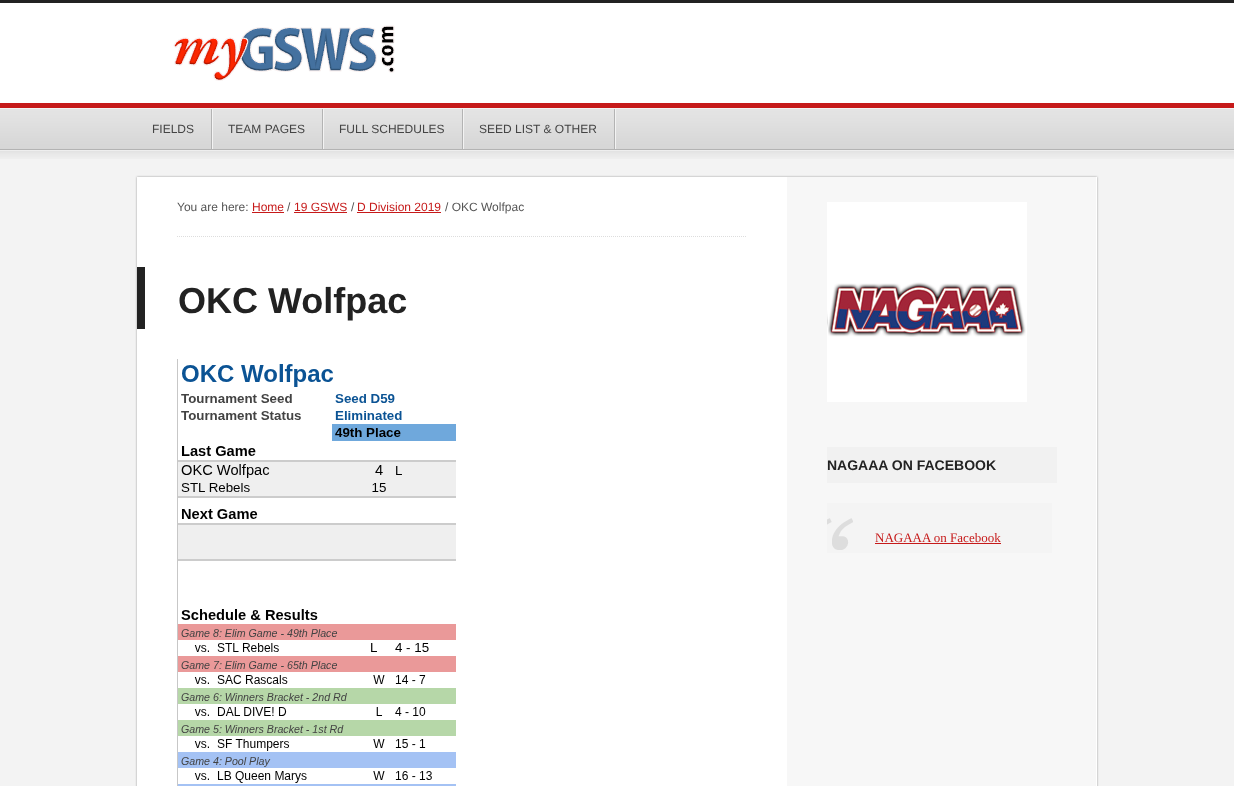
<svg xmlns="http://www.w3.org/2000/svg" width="1234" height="786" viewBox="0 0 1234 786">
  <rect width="100%" height="100%" fill="rgb(34,34,34)"/>
  <rect x="0" y="108" width="1234" height="678" fill="rgb(243,243,243)"/>
  <rect x="0" y="3" width="1234" height="100" fill="rgb(255,255,255)"/>
  <rect x="0" y="103" width="1234" height="5" fill="rgb(198,26,26)"/>
  <image x="173" y="25" width="222" height="56" href="pic1.png"/>
  <image x="0" y="109" width="1234" height="50" href="pic2.png"/>
  <image x="211" y="109" width="2" height="40" href="pic3.png"/>
  <text x="152" y="133" font-family="Liberation Sans" font-size="12" fill="rgb(68,68,68)">FIELDS</text>
  <image x="322" y="109" width="2" height="40" href="pic3.png"/>
  <text x="228" y="133" font-family="Liberation Sans" font-size="12" fill="rgb(68,68,68)">TEAM PAGES</text>
  <image x="462" y="109" width="2" height="40" href="pic3.png"/>
  <text x="339" y="133" font-family="Liberation Sans" font-size="12" fill="rgb(68,68,68)">FULL SCHEDULES</text>
  <image x="614" y="109" width="2" height="40" href="pic3.png"/>
  <text x="479" y="133" font-family="Liberation Sans" font-size="12" fill="rgb(68,68,68)">SEED LIST &amp; OTHER</text>
  <rect x="137" y="177" width="960" height="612" fill="rgb(153,153,153)" filter="blur(1px)"/>
  <image x="137" y="177" width="960" height="609" href="pic4.png"/>
  <path d="M177 236.5H747" fill="none" stroke="rgb(221,221,221)" stroke-dasharray="1 1"/>
  <text x="177" y="211" font-family="Liberation Sans" font-size="12" fill="rgb(85,85,85)">You are here:</text>
  <text x="252" y="211" font-family="Liberation Sans" font-size="12" fill="rgb(198,26,26)">Home</text>
  <rect x="252" y="212" width="32" height="1" fill="rgb(198,26,26)"/>
  <text x="287" y="211" font-family="Liberation Sans" font-size="12" fill="rgb(85,85,85)">/</text>
  <text x="294" y="211" font-family="Liberation Sans" font-size="12" fill="rgb(198,26,26)">19 GSWS</text>
  <rect x="294" y="212" width="53" height="1" fill="rgb(198,26,26)"/>
  <text x="351" y="211" font-family="Liberation Sans" font-size="12" fill="rgb(85,85,85)">/</text>
  <text x="357" y="211" font-family="Liberation Sans" font-size="12" fill="rgb(198,26,26)">D Division 2019</text>
  <rect x="357" y="212" width="84" height="1" fill="rgb(198,26,26)"/>
  <text x="445" y="211" font-family="Liberation Sans" font-size="12" fill="rgb(85,85,85)">/ OKC Wolfpac</text>
  <rect x="137" y="267" width="8" height="62" fill="rgb(34,34,34)"/>
  <text x="178" y="313" font-family="Liberation Sans" font-size="36" font-weight="bold" fill="rgb(34,34,34)">OKC Wolfpac</text>
  <image x="177" y="359" width="279" height="427" href="pic5.png"/>
  <image x="827" y="202" width="200" height="200" href="pic6.png"/>
  <rect x="827" y="447" width="230" height="36" fill="rgb(241,241,241)"/>
  <text x="827" y="470" font-family="Liberation Sans" font-size="14" font-weight="bold" fill="rgb(34,34,34)">NAGAAA ON FACEBOOK</text>
  <rect x="827" y="503" width="225" height="50" fill="rgb(244,244,244)"/>
  <image x="827" y="518" width="26" height="32" href="pic7.png"/>
  <text x="875" y="542" font-family="Liberation Serif" font-size="13" fill="rgb(198,26,26)">NAGAAA on Facebook</text>
  <rect x="875" y="543" width="126" height="1" fill="rgb(198,26,26)"/>
</svg>
